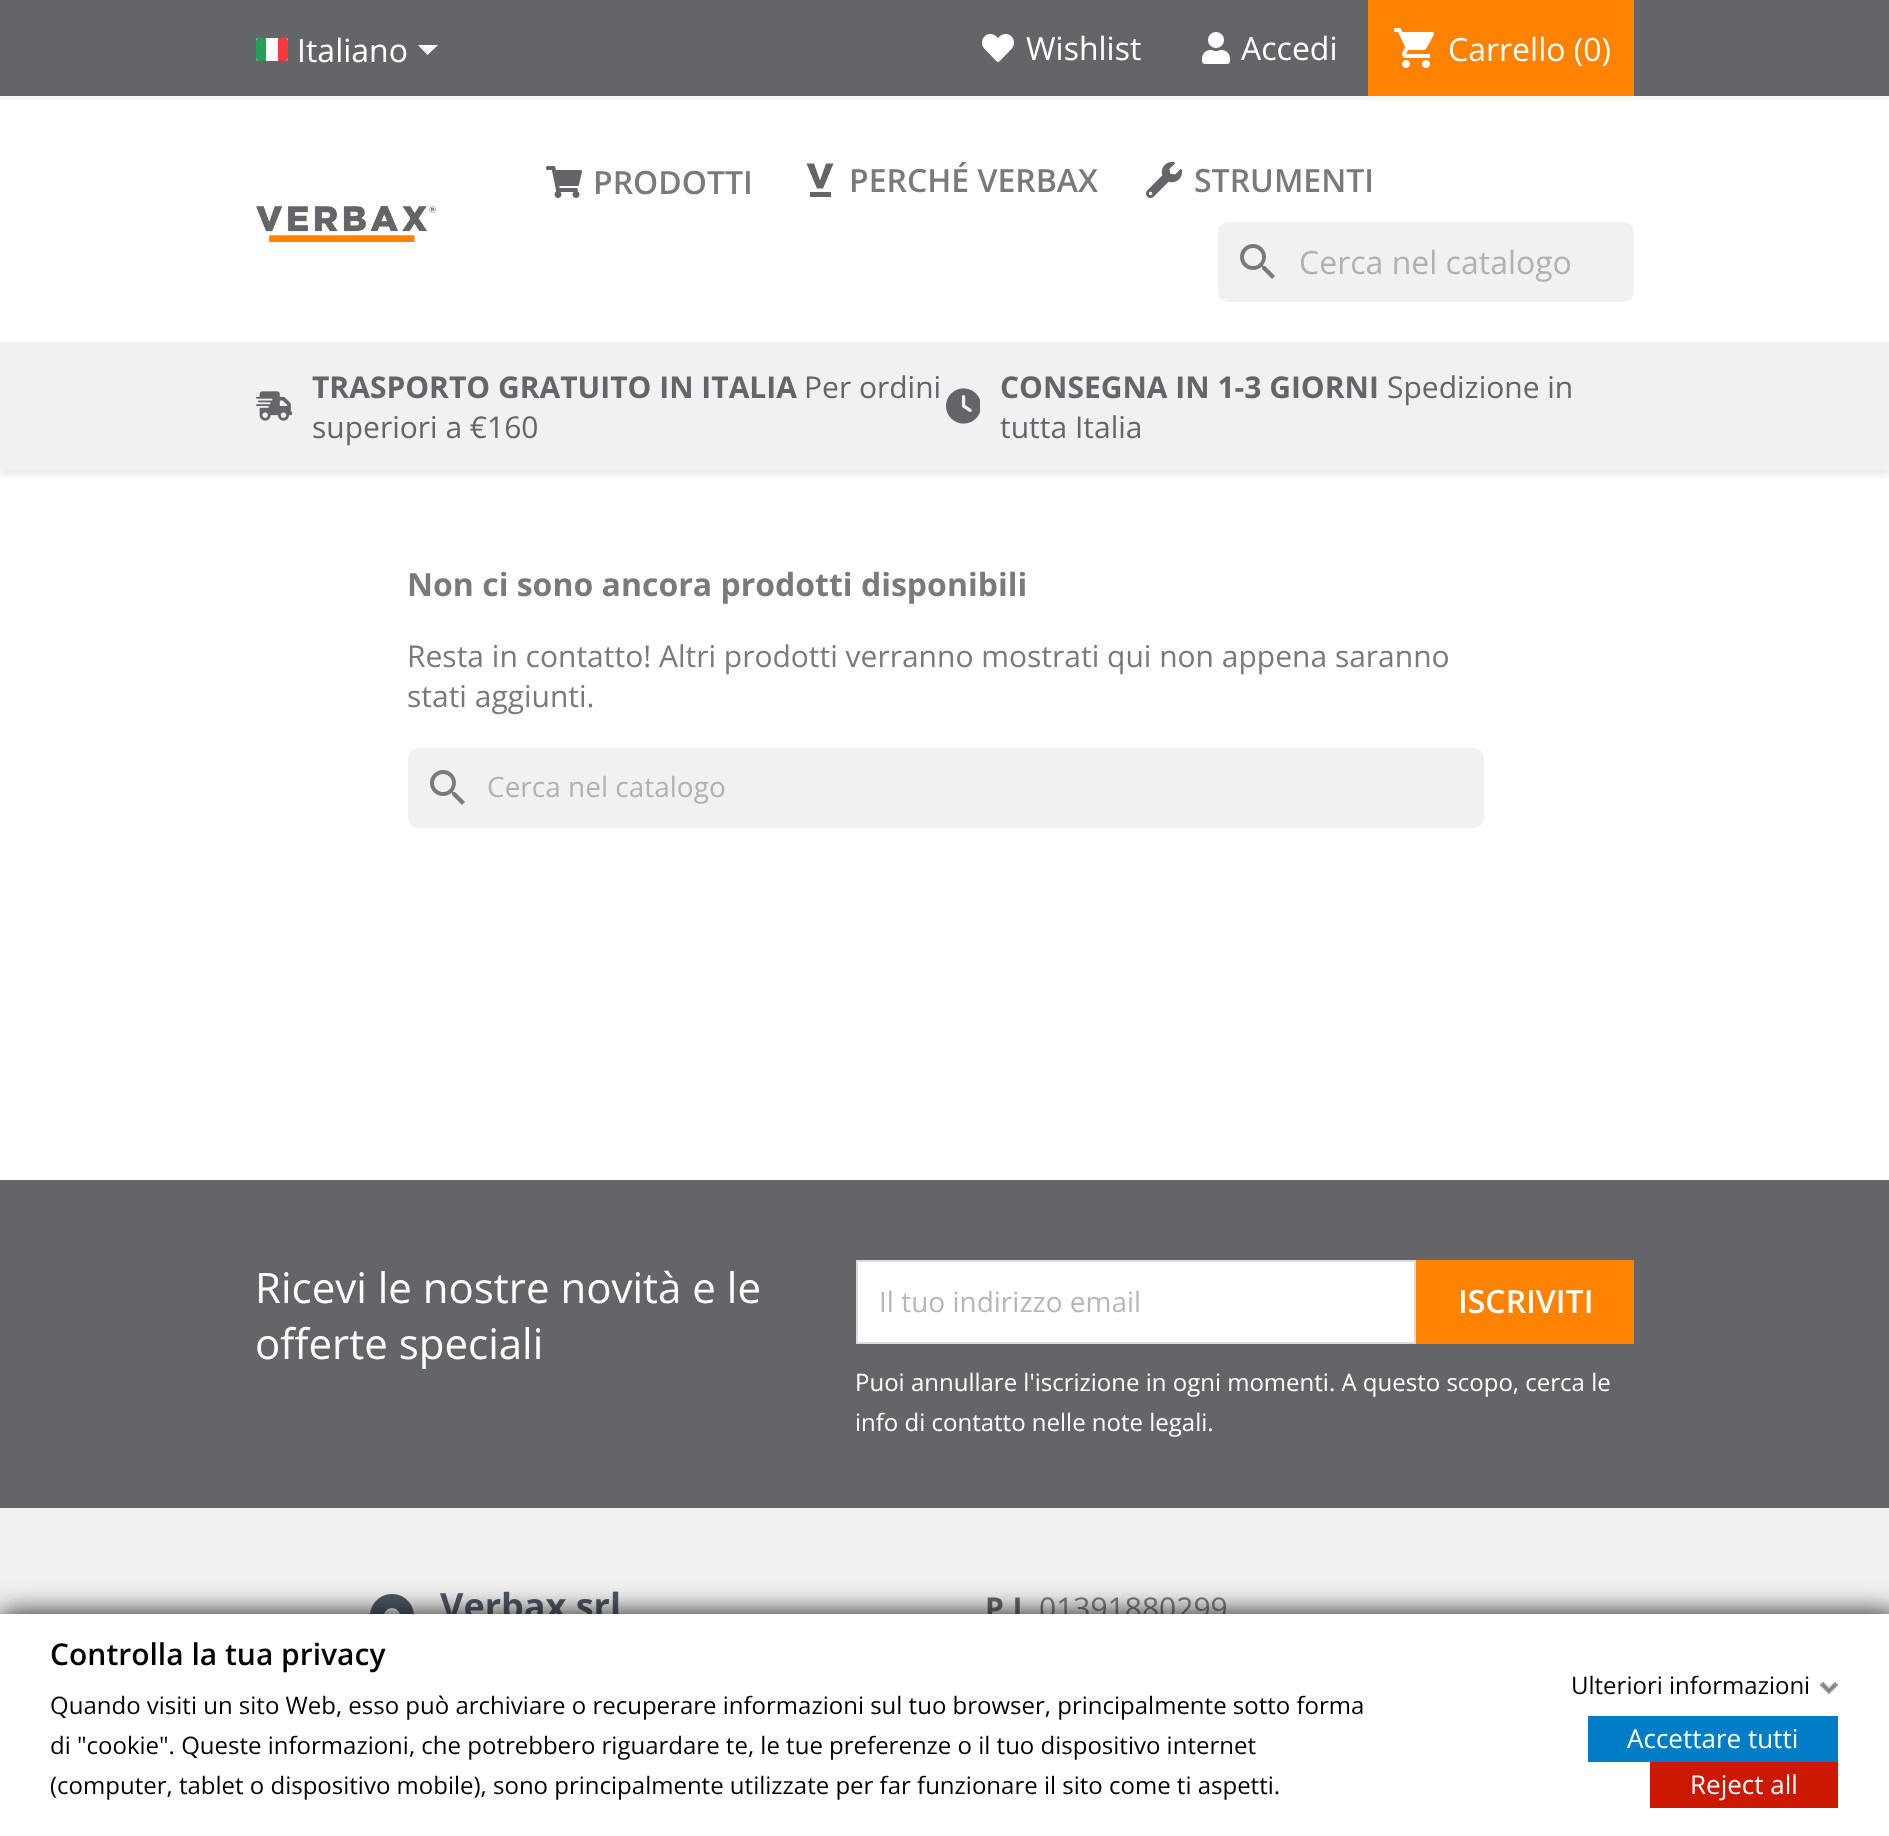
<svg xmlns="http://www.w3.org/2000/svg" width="1889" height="1836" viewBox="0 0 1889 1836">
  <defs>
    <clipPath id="clip1"><rect x="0" y="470" width="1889" height="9"/></clipPath>
  </defs>
  <rect width="100%" height="100%" fill="rgb(255,255,255)"/>
  <g clip-path="url(#clip1)">
    <rect x="0" y="4" width="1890" height="470" fill="rgba(0,0,0,0.11)" filter="blur(5px)"/>
  </g>
  <rect x="0" y="0" width="1889" height="96" fill="rgb(100,101,105)"/>
  <rect x="0" y="96" width="1889" height="4" fill="rgb(246,246,246)"/>
  <rect x="256" y="38" width="32" height="23" rx="3" fill="rgb(255,255,255)"/>
  <path d="M259 38H266V61H259C257.5 61 256 59.5 256 58V41C256 39.5 257.5 38 259 38Z" fill="rgb(36,159,88)"/>
  <path d="M278 38H285C286.5 38 288 39.5 288 41V58C288 59.5 286.5 61 285 61H278Z" fill="rgb(249,57,57)"/>
  <text x="297" y="62" font-family="Open Sans" font-size="32" fill="rgb(255,255,255)">Italiano</text>
  <path d="M438 45H418L427.5 55Z" fill="rgb(255,255,255)"/>
  <image x="982" y="34" width="32" height="28" href="pic1.png"/>
  <text x="1026" y="60" font-family="Open Sans" font-size="32" fill="rgb(255,255,255)">Wishlist</text>
  <image x="1202" y="32" width="28" height="32" href="pic2.png"/>
  <text x="1241" y="60" font-family="Open Sans" font-size="32" fill="rgb(255,255,255)">Accedi</text>
  <rect x="1368" y="0" width="266" height="96" fill="rgb(255,130,0)"/>
  <image x="1393" y="28" width="41" height="40" href="pic3.png"/>
  <text x="1448" y="61" font-family="Open Sans" font-size="32" fill="rgb(255,255,255)">Carrello (0)</text>
  <image x="256" y="206" width="180" height="36" href="pic4.png"/>
  <image x="546" y="166" width="36" height="32" href="pic5.png"/>
  <text x="593" y="194" font-family="Open Sans" font-size="32" font-weight="600" fill="rgb(122,122,122)">PRODOTTI</text>
  <path d="M814 163.5H806.5L817 188.5H823L833.5 163.5H826L820 180.5Z" fill="rgb(100,101,105)"/>
  <rect x="810" y="192" width="21" height="5" fill="rgb(100,101,105)"/>
  <text x="849" y="192" font-family="Open Sans" font-size="32" font-weight="600" fill="rgb(122,122,122)">PERCHÉ VERBAX</text>
  <image x="1146" y="162" width="36" height="36" href="pic6.png"/>
  <text x="1194" y="192" font-family="Open Sans" font-size="32" font-weight="600" fill="rgb(122,122,122)">STRUMENTI</text>
  <rect x="1218" y="222" width="416" height="80" rx="10" fill="rgb(241,241,241)"/>
  <image x="1240" y="244" width="35" height="35" href="pic7.png"/>
  <text x="1299" y="274" font-family="Open Sans" font-size="32" fill="rgb(177,177,177)">Cerca nel catalogo</text>
  <rect x="0" y="342" width="1889" height="128" fill="rgb(241,241,241)"/>
  <image x="256" y="391" width="36" height="30" href="pic8.png"/>
  <text x="312" y="398" font-family="Open Sans" font-size="30" font-weight="bold" fill="rgb(100,101,105)">TRASPORTO GRATUITO IN ITALIA</text>
  <g font-family="Open Sans" font-size="30" fill="rgb(100,101,105)">
    <text x="804" y="398">Per ordini</text>
    <text x="312" y="438">superiori a €160</text>
  </g>
  <image x="946" y="388" width="34" height="36" href="pic9.png"/>
  <text x="1000" y="398" font-family="Open Sans" font-size="30" font-weight="bold" fill="rgb(100,101,105)">CONSEGNA IN 1-3 GIORNI</text>
  <g font-family="Open Sans" font-size="30" fill="rgb(100,101,105)">
    <text x="1387" y="398">Spedizione in</text>
    <text x="1000" y="438">tutta Italia</text>
  </g>
  <text x="407" y="596" font-family="Open Sans" font-size="32" font-weight="bold" fill="rgb(122,122,122)">Non ci sono ancora prodotti disponibili</text>
  <g font-family="Open Sans" font-size="30" fill="rgb(122,122,122)">
    <text>
      <tspan x="407" y="667">Resta in contatto! Altri prodotti verranno mostrati qui non appena saranno</tspan>
      <tspan x="407" y="707">stati aggiunti.</tspan>
    </text>
  </g>
  <rect x="408" y="748" width="1076" height="80" rx="10" fill="rgb(241,241,241)"/>
  <image x="430" y="770" width="35" height="35" href="pic7.png"/>
  <text x="487" y="797" font-family="Open Sans" font-size="28" fill="rgb(177,177,177)">Cerca nel catalogo</text>
  <rect x="0" y="1180" width="1889" height="328" fill="rgb(100,101,105)"/>
  <g font-family="Open Sans" font-size="42" fill="rgb(255,255,255)">
    <text>
      <tspan x="255" y="1303">Ricevi le nostre novità e le</tspan>
      <tspan x="255" y="1359">offerte speciali</tspan>
    </text>
  </g>
  <rect x="857" y="1261" width="558" height="82" fill="rgb(255,255,255)" stroke="rgb(221,221,221)" stroke-width="2"/>
  <text x="879" y="1312" font-family="Open Sans" font-size="28" fill="rgb(183,183,183)">Il tuo indirizzo email</text>
  <rect x="1416" y="1260" width="218" height="84" fill="rgb(255,130,0)"/>
  <text x="1458" y="1313" font-family="Open Sans" font-size="32" font-weight="600" fill="rgb(255,255,255)">ISCRIVITI</text>
  <g font-family="Open Sans" font-size="24" fill="rgb(255,255,255)">
    <text>
      <tspan x="855" y="1391">Puoi annullare l'iscrizione in ogni momenti. A questo scopo, cerca le</tspan>
      <tspan x="855" y="1431">info di contatto nelle note legali.</tspan>
    </text>
  </g>
  <rect x="0" y="1508" width="1889" height="106" fill="rgb(241,241,241)"/>
  <image x="370" y="1594" width="44" height="20" href="pic10.png"/>
  <text x="440" y="1619" font-family="Open Sans" font-size="36" font-weight="bold" fill="rgb(75,85,99)">Verbax srl</text>
  <text x="985" y="1619" font-family="Open Sans" font-size="30" font-weight="bold" fill="rgb(100,101,105)">P.I</text>
  <text x="1039" y="1619" font-family="Open Sans" font-size="30" fill="rgb(122,122,122)">01391880299</text>
  <rect x="0" y="1614" width="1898" height="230" fill="rgb(18,18,18)" filter="blur(14px)"/>
  <rect x="0" y="1614" width="1889" height="222" fill="rgb(255,255,255)"/>
  <text x="50" y="1665" font-family="Open Sans" font-size="30" font-weight="600" fill="rgb(0,0,0)">Controlla la tua privacy</text>
  <g font-family="Open Sans" font-size="24" fill="rgb(0,0,0)">
    <text>
      <tspan x="50" y="1714">Quando visiti un sito Web, esso può archiviare o recuperare informazioni sul tuo browser, principalmente sotto forma</tspan>
      <tspan x="50" y="1754">di "cookie". Queste informazioni, che potrebbero riguardare te, le tue preferenze o il tuo dispositivo internet</tspan>
      <tspan x="50" y="1794">(computer, tablet o dispositivo mobile), sono principalmente utilizzate per far funzionare il sito come ti aspetti.</tspan>
    </text>
    <text x="1571" y="1694">Ulteriori informazioni</text>
  </g>
  <image x="1820" y="1682" width="18" height="12" href="pic11.png"/>
  <rect x="1588" y="1716" width="250" height="46" fill="rgb(0,125,198)"/>
  <text x="1627" y="1748" font-family="Open Sans" font-size="26" fill="rgb(255,255,255)">Accettare tutti</text>
  <rect x="1650" y="1762" width="188" height="46" fill="rgb(204,24,0)"/>
  <text x="1690" y="1794" font-family="Open Sans" font-size="26" fill="rgb(255,255,255)">Reject all</text>
</svg>
